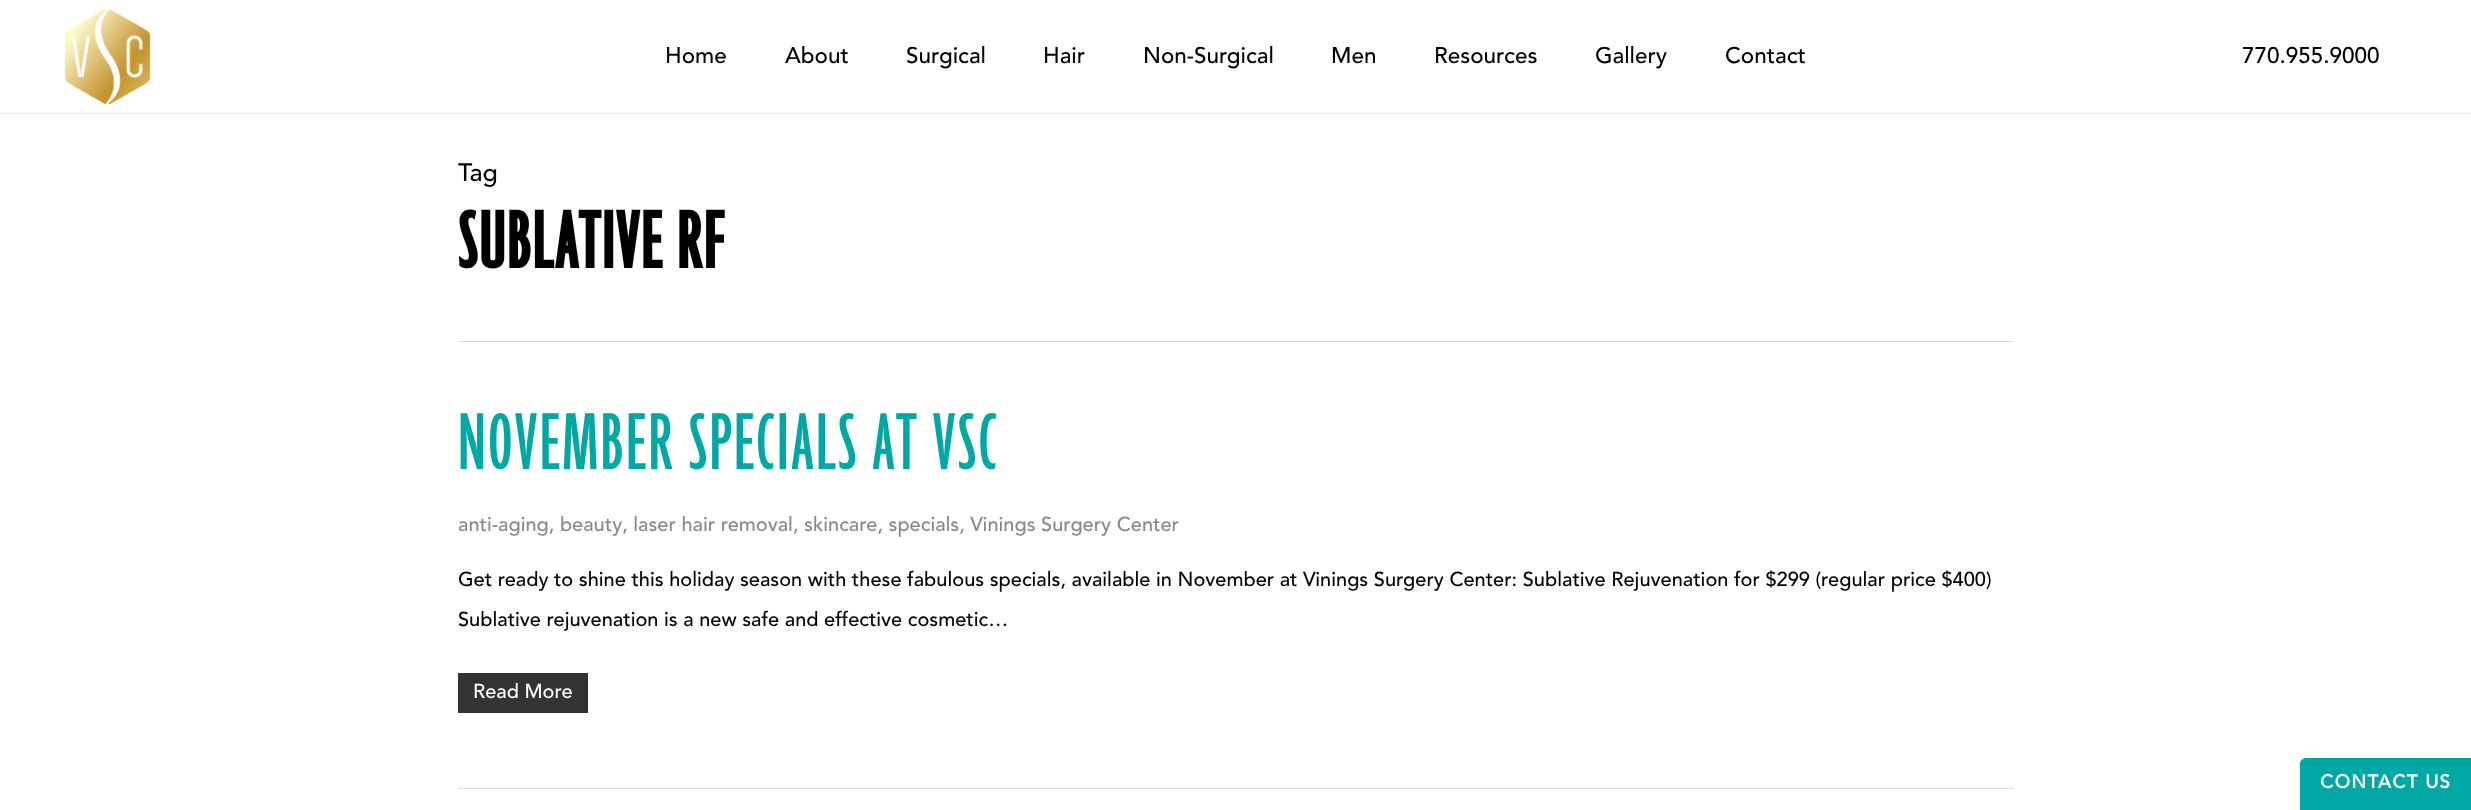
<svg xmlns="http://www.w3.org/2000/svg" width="2471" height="810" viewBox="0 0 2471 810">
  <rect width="100%" height="100%" fill="rgb(255,255,255)"/>
  <rect x="0" y="113" width="2471" height="1" fill="rgb(235,235,235)"/>
  <image x="64" y="9" width="87" height="95" href="pic1.png"/>
  <g font-family="Avenir" font-size="22.5" font-weight="500" fill="rgb(0,0,0)">
    <text x="665" y="63">Home</text>
    <text x="785" y="63">About</text>
    <text x="906" y="63">Surgical</text>
    <text x="1043" y="63">Hair</text>
    <text x="1143" y="63">Non-Surgical</text>
    <text x="1331" y="63">Men</text>
    <text x="1434" y="63">Resources</text>
    <text x="1595" y="63">Gallery</text>
    <text x="1725" y="63">Contact</text>
    <text x="2242" y="63">770.955.9000</text>
  </g>
  <rect x="458" y="341" width="1556" height="1" fill="rgb(217,217,217)"/>
  <text x="458" y="181" font-family="Avenir" font-size="25" font-weight="500" fill="rgb(0,0,0)">Tag</text>
  <text x="458" y="268" font-family="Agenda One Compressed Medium" font-size="87.5" font-weight="bold" letter-spacing="2.5" fill="rgb(0,0,0)">SUBLATIVE RF</text>
  <rect x="458" y="788" width="1556" height="1" fill="rgb(221,221,221)"/>
  <text x="458" y="469" font-family="Agenda One Compressed Medium" font-size="87.5" font-weight="500" letter-spacing="2.5" fill="rgb(0,168,165)">NOVEMBER SPECIALS AT VSC</text>
  <text x="458" y="531" font-family="Avenir" font-size="20" font-weight="500" fill="rgb(136,136,136)">anti-aging, beauty, laser hair removal, skincare, specials, Vinings Surgery Center</text>
  <g font-family="Avenir" font-size="20" font-weight="500" fill="rgb(0,0,0)">
    <text x="458" y="586">Get ready to shine this holiday season with these fabulous specials, available in November at Vinings Surgery Center: Sublative Rejuvenation for $299 (regular price $400)</text>
    <text x="458" y="626">Sublative rejuvenation is a new safe and effective cosmetic…</text>
  </g>
  <rect x="458" y="673" width="130" height="40" fill="rgb(51,51,51)"/>
  <text x="473" y="698" font-family="Avenir" font-size="20" font-weight="500" fill="rgb(255,255,255)">Read More</text>
  <path d="M2306 758H2471V810H2300V764C2300 760.5 2302.5 758 2306 758Z" fill="rgb(0,168,165)"/>
  <text x="2320" y="788" font-family="Avenir" font-size="18.75" font-weight="bold" letter-spacing="1.25" fill="rgb(255,255,255)">CONTACT US</text>
</svg>
